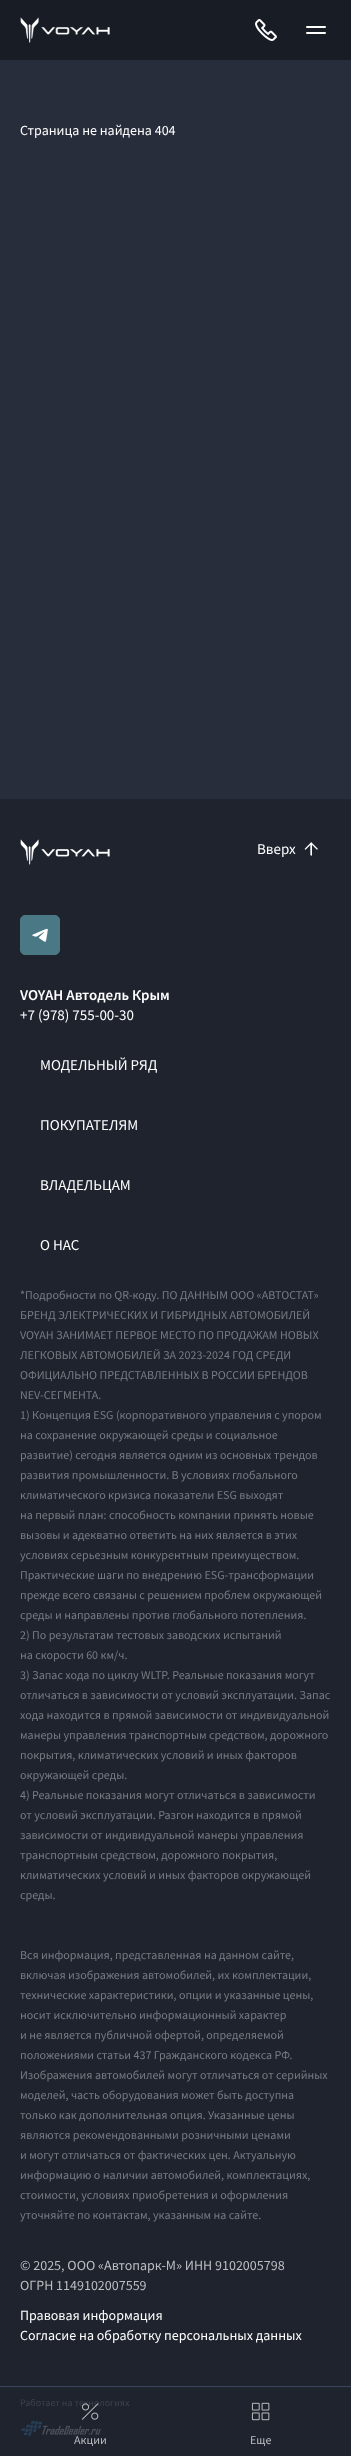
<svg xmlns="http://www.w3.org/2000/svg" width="351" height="2456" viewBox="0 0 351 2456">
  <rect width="100%" height="100%" fill="rgb(40,45,60)"/>
  <rect x="0" y="0" width="351" height="60" fill="rgb(24,28,37)"/>
  <image x="20" y="17" width="90" height="26" href="pic1.png"/>
  <image x="255" y="19" width="22" height="22" href="pic2.png"/>
  <path d="M307 27H325M307 33H325" fill="none" stroke="rgb(255,255,255)" stroke-width="2" stroke-linecap="round" stroke-linejoin="round"/>
  <text x="20" y="135" font-family="Source Sans Pro" font-size="14" fill="rgb(255,255,255)">Страница не найдена 404</text>
  <rect x="0" y="799" width="351" height="1587" fill="rgb(30,35,46)"/>
  <rect x="0" y="2387" width="351" height="69" fill="rgb(30,35,46)"/>
  <image x="20" y="839" width="90" height="26" href="pic3.png"/>
  <text x="257" y="854" font-family="Source Sans Pro" font-size="15" fill="rgb(255,255,255)">Вверх</text>
  <image x="304" y="842" width="14" height="14" href="pic4.png"/>
  <rect x="20.5" y="915.5" width="39" height="39" rx="4.5" fill="rgb(74,120,132)" stroke="rgb(74,120,132)"/>
  <image x="32" y="928" width="16" height="14" href="pic5.png"/>
  <text x="20" y="1000" font-family="Source Sans Pro" font-size="15" font-weight="600" fill="rgb(255,255,255)">VOYAH Автодель Крым</text>
  <g font-family="Source Sans Pro" font-size="15" fill="rgb(255,255,255)">
    <text x="20" y="1020">+7 (978) 755-00-30</text>
    <text x="40" y="1070">МОДЕЛЬНЫЙ РЯД</text>
    <text x="40" y="1130">ПОКУПАТЕЛЯМ</text>
    <text x="40" y="1190">ВЛАДЕЛЬЦАМ</text>
    <text x="40" y="1250">О НАС</text>
  </g>
  <g font-family="Source Sans Pro" font-size="12" fill="rgb(120,123,130)">
    <text>
      <tspan x="20" y="1299">*Подробности по QR-коду. ПО ДАННЫМ ООО «АВТОСТАТ»</tspan>
      <tspan x="20" y="1319">БРЕНД ЭЛЕКТРИЧЕСКИХ И ГИБРИДНЫХ АВТОМОБИЛЕЙ</tspan>
      <tspan x="20" y="1339">VOYAH ЗАНИМАЕТ ПЕРВОЕ МЕСТО ПО ПРОДАЖАМ НОВЫХ</tspan>
      <tspan x="20" y="1359">ЛЕГКОВЫХ АВТОМОБИЛЕЙ ЗА 2023-2024 ГОД СРЕДИ</tspan>
      <tspan x="20" y="1379">ОФИЦИАЛЬНО ПРЕДСТАВЛЕННЫХ В РОССИИ БРЕНДОВ</tspan>
      <tspan x="20" y="1399">NEV-СЕГМЕНТА.</tspan>
      <tspan x="20" y="1419">1) Концепция ESG (корпоративного управления с упором</tspan>
      <tspan x="20" y="1439">на сохранение окружающей среды и социальное</tspan>
      <tspan x="20" y="1459">развитие) сегодня является одним из основных трендов</tspan>
      <tspan x="20" y="1479">развития промышленности. В условиях глобального</tspan>
      <tspan x="20" y="1499">климатического кризиса показатели ESG выходят</tspan>
      <tspan x="20" y="1519">на первый план: способность компании принять новые</tspan>
      <tspan x="20" y="1539">вызовы и адекватно ответить на них является в этих</tspan>
      <tspan x="20" y="1559">условиях серьезным конкурентным преимуществом.</tspan>
      <tspan x="20" y="1579">Практические шаги по внедрению ESG-трансформации</tspan>
      <tspan x="20" y="1599">прежде всего связаны с решением проблем окружающей</tspan>
      <tspan x="20" y="1619">среды и направлены против глобального потепления.</tspan>
      <tspan x="20" y="1639">2) По результатам тестовых заводских испытаний</tspan>
      <tspan x="20" y="1659">на скорости 60 км/ч.</tspan>
      <tspan x="20" y="1679">3) Запас хода по циклу WLTP. Реальные показания могут</tspan>
      <tspan x="20" y="1699">отличаться в зависимости от условий эксплуатации. Запас</tspan>
      <tspan x="20" y="1719">хода находится в прямой зависимости от индивидуальной</tspan>
      <tspan x="20" y="1739">манеры управления транспортным средством, дорожного</tspan>
      <tspan x="20" y="1759">покрытия, климатических условий и иных факторов</tspan>
      <tspan x="20" y="1779">окружающей среды.</tspan>
      <tspan x="20" y="1799">4) Реальные показания могут отличаться в зависимости</tspan>
      <tspan x="20" y="1819">от условий эксплуатации. Разгон находится в прямой</tspan>
      <tspan x="20" y="1839">зависимости от индивидуальной манеры управления</tspan>
      <tspan x="20" y="1859">транспортным средством, дорожного покрытия,</tspan>
      <tspan x="20" y="1879">климатических условий и иных факторов окружающей</tspan>
      <tspan x="20" y="1899">среды.</tspan>
    </text>
    <text>
      <tspan x="20" y="1959">Вся информация, представленная на данном сайте,</tspan>
      <tspan x="20" y="1979">включая изображения автомобилей, их комплектации,</tspan>
      <tspan x="20" y="1999">технические характеристики, опции и указанные цены,</tspan>
      <tspan x="20" y="2019">носит исключительно информационный характер</tspan>
      <tspan x="20" y="2039">и не является публичной офертой, определяемой</tspan>
      <tspan x="20" y="2059">положениями статьи 437 Гражданского кодекса РФ.</tspan>
      <tspan x="20" y="2079">Изображения автомобилей могут отличаться от серийных</tspan>
      <tspan x="20" y="2099">моделей, часть оборудования может быть доступна</tspan>
      <tspan x="20" y="2119">только как дополнительная опция. Указанные цены</tspan>
      <tspan x="20" y="2139">являются рекомендованными розничными ценами</tspan>
      <tspan x="20" y="2159">и могут отличаться от фактических цен. Актуальную</tspan>
      <tspan x="20" y="2179">информацию о наличии автомобилей, комплектациях,</tspan>
      <tspan x="20" y="2199">стоимости, условиях приобретения и оформления</tspan>
      <tspan x="20" y="2219">уточняйте по контактам, указанным на сайте.</tspan>
    </text>
  </g>
  <g font-family="Source Sans Pro" font-size="14" fill="rgb(188,189,192)">
    <text>
      <tspan x="20" y="2270">© 2025, ООО «Автопарк-М» ИНН 9102005798</tspan>
      <tspan x="20" y="2290">ОГРН 1149102007559</tspan>
    </text>
  </g>
  <g font-family="Source Sans Pro" font-size="14" fill="rgb(255,255,255)">
    <text>
      <tspan x="20" y="2320">Правовая информация</tspan>
      <tspan x="20" y="2340">Согласие на обработку персональных данных</tspan>
    </text>
  </g>
  <text x="20" y="2406" font-family="Source Sans Pro" font-size="10" fill="rgb(62,66,75)">Работает на технологиях</text>
  <image x="21" y="2421" width="80" height="15" href="pic6.png"/>
  <rect x="0" y="2386" width="351" height="1" fill="rgb(61,69,92)"/>
  <image x="81" y="2403" width="18" height="17" href="pic7.png"/>
  <text x="74" y="2444" font-family="Source Sans Pro" font-size="12" fill="rgb(188,189,192)">Акции</text>
  <image x="251" y="2402" width="19" height="19" href="pic8.png"/>
  <text x="250" y="2444" font-family="Source Sans Pro" font-size="12" fill="rgb(188,189,192)">Еще</text>
</svg>
